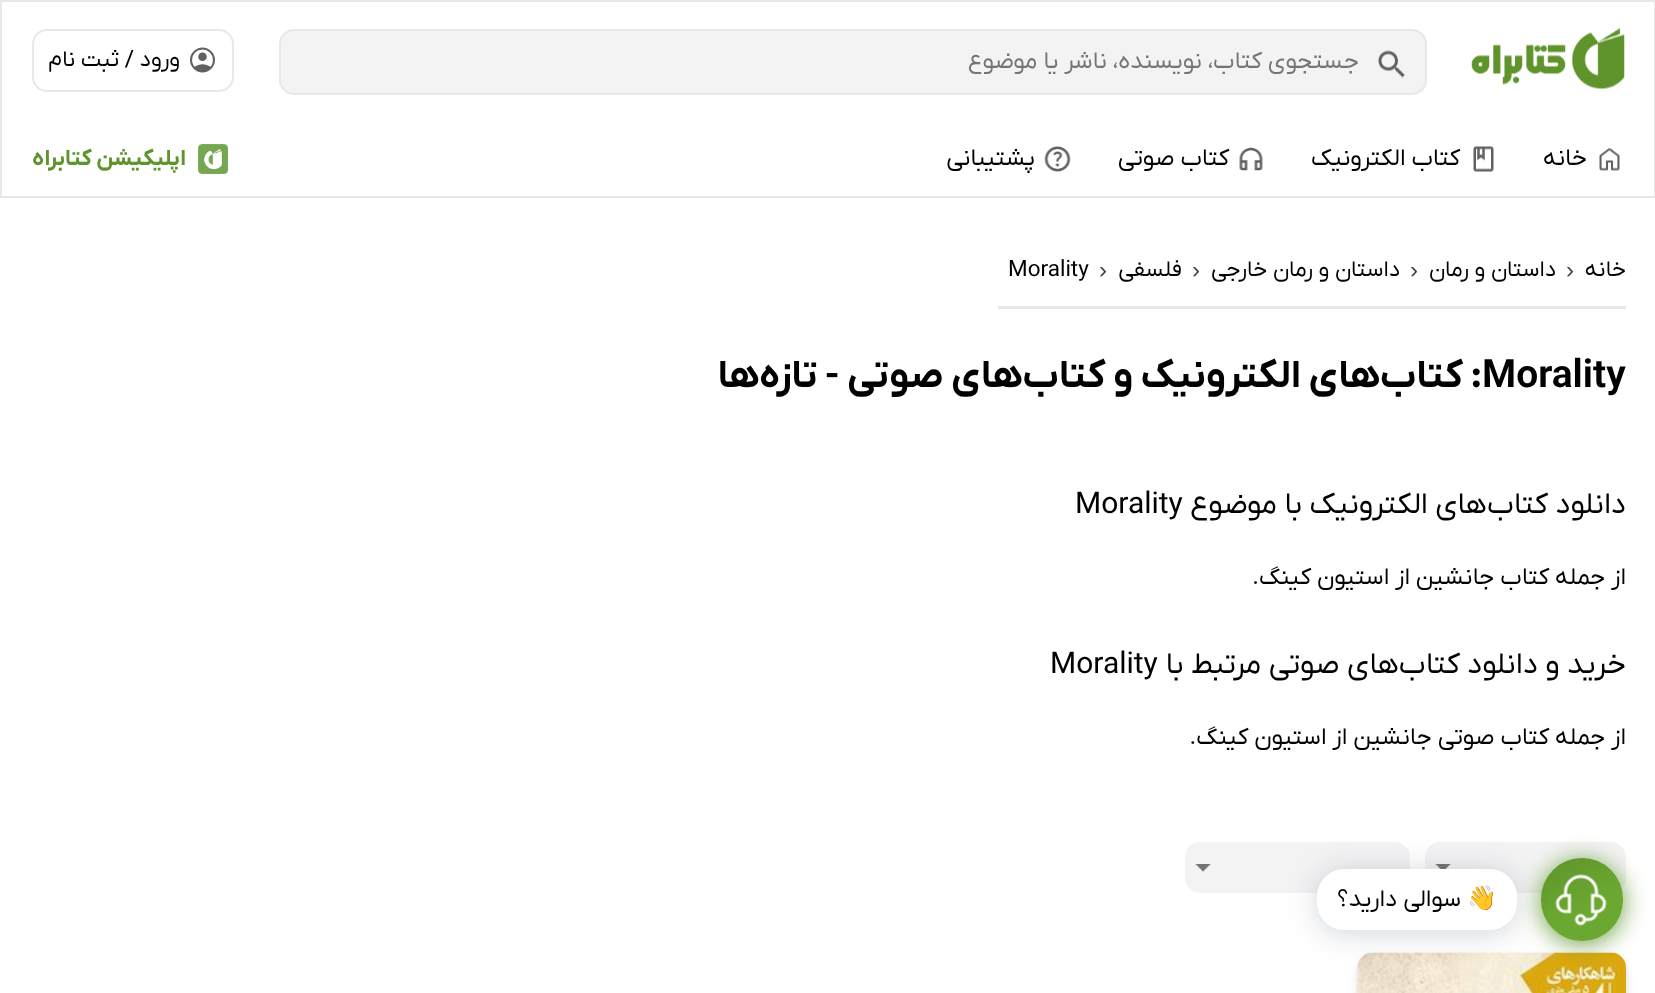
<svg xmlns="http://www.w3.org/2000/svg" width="1655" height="993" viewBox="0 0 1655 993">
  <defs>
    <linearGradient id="g1" gradientUnits="userSpaceOnUse" x1="1557" y1="850" x2="1607" y2="949"><stop offset="0" stop-color="rgb(94,148,43)"/><stop offset="0.58" stop-color="rgb(107,168,49)"/></linearGradient>
  </defs>
  <rect width="100%" height="100%" fill="rgb(255,255,255)"/>
  <rect x="1" y="1" width="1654" height="196" fill="none" stroke="rgb(232,232,232)" stroke-width="2"/>
  <image x="1471" y="28" width="154" height="61" href="pic1.png"/>
  <rect x="280" y="30" width="1146" height="64" rx="14" fill="rgb(243,243,244)" stroke="rgb(232,232,232)" stroke-width="2"/>
  <image x="1378" y="50" width="27" height="28" href="pic2.png"/>
  <text x="1359" y="68" font-family="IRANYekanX" font-size="24" direction="rtl" fill="rgb(117,117,117)">جستجوی کتاب، نویسنده، ناشر یا موضوع</text>
  <rect x="33" y="30" width="200" height="61" rx="14" fill="none" stroke="rgb(232,232,232)" stroke-width="2"/>
  <image x="190" y="47" width="25" height="26" href="pic3.png"/>
  <text x="180" y="66" font-family="IRANYekanX" font-size="22.5" direction="rtl" fill="rgb(0,0,0)">ورود / ثبت نام</text>
  <image x="1599" y="147" width="21" height="24" href="pic4.png"/>
  <text x="1587" y="165" font-family="IRANYekanX" font-size="24" direction="rtl" fill="rgb(0,0,0)">خانه</text>
  <image x="1473" y="146" width="21" height="26" href="pic5.png"/>
  <text x="1460" y="165" font-family="IRANYekanX" font-size="24" direction="rtl" fill="rgb(0,0,0)">کتاب الکترونیک</text>
  <image x="1239" y="147" width="24" height="24" href="pic6.png"/>
  <text x="1229" y="165" font-family="IRANYekanX" font-size="24" direction="rtl" fill="rgb(0,0,0)">کتاب صوتی</text>
  <image x="1044" y="146" width="27" height="26" href="pic7.png"/>
  <text x="1035" y="165" font-family="IRANYekanX" font-size="24" direction="rtl" fill="rgb(0,0,0)">پشتیبانی</text>
  <image x="198" y="144" width="30" height="30" href="pic8.png"/>
  <text x="186" y="165" font-family="IRANYekanX" font-size="22.5" font-weight="bold" direction="rtl" fill="rgb(94,148,43)">اپلیکیشن کتابراه</text>
  <rect x="998" y="306" width="628" height="3" fill="rgb(232,232,232)"/>
  <text x="1626" y="276" font-family="IRANYekanX" font-size="22.5" direction="rtl" fill="rgb(0,0,0)">خانه</text>
  <text x="1566" y="278" font-family="Liberation Sans" font-size="24" fill="rgb(66,66,66)">›</text>
  <text x="1556" y="276" font-family="IRANYekanX" font-size="22.5" direction="rtl" fill="rgb(0,0,0)">داستان و رمان</text>
  <text x="1410" y="278" font-family="Liberation Sans" font-size="24" fill="rgb(66,66,66)">›</text>
  <text x="1400" y="276" font-family="IRANYekanX" font-size="22.5" direction="rtl" fill="rgb(0,0,0)">داستان و رمان خارجی</text>
  <text x="1192" y="278" font-family="Liberation Sans" font-size="24" fill="rgb(66,66,66)">›</text>
  <text x="1182" y="276" font-family="IRANYekanX" font-size="22.5" direction="rtl" fill="rgb(0,0,0)">فلسفی</text>
  <text x="1099" y="278" font-family="Liberation Sans" font-size="24" fill="rgb(66,66,66)">›</text>
  <text x="1008" y="276" font-family="IRANYekanX" font-size="22.5" fill="rgb(0,0,0)">Morality</text>
  <text x="1482" y="387" font-family="IRANYekanX" font-size="39" font-weight="bold" fill="rgb(0,0,0)">Morality</text>
  <text x="1482" y="387" font-family="IRANYekanX" font-size="39" font-weight="bold" direction="rtl" fill="rgb(0,0,0)">: کتاب‌های الکترونیک و کتاب‌های صوتی - تازه‌ها</text>
  <text x="1626" y="513" font-family="IRANYekanX" font-size="30" direction="rtl" fill="rgb(0,0,0)">دانلود کتاب‌های الکترونیک با موضوع</text>
  <text x="1075" y="513" font-family="IRANYekanX" font-size="30" fill="rgb(0,0,0)">Morality</text>
  <text x="1626" y="584" font-family="IRANYekanX" font-size="24" direction="rtl" fill="rgb(0,0,0)">از جمله کتاب جانشین از استیون کینگ.</text>
  <text x="1626" y="673" font-family="IRANYekanX" font-size="30" direction="rtl" fill="rgb(0,0,0)">خرید و دانلود کتاب‌های صوتی مرتبط با</text>
  <text x="1050" y="673" font-family="IRANYekanX" font-size="30" fill="rgb(0,0,0)">Morality</text>
  <text x="1626" y="744" font-family="IRANYekanX" font-size="24" direction="rtl" fill="rgb(0,0,0)">از جمله کتاب صوتی جانشین از استیون کینگ.</text>
  <rect x="1425" y="842" width="201" height="51" rx="15" fill="rgb(243,243,244)"/>
  <image x="1435" y="864" width="16" height="5" href="pic9.png"/>
  <rect x="1185" y="842" width="225" height="51" rx="15" fill="rgb(243,243,244)"/>
  <image x="1195" y="864" width="16" height="8" href="pic10.png"/>
  <rect x="1358" y="954" width="268" height="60" rx="15" fill="rgba(0,0,0,0.06)" filter="blur(2px)"/>
  <rect x="1358" y="959" width="268" height="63" rx="15" fill="rgba(0,0,0,0.1)" filter="blur(4.5px)"/>
  <image x="1357" y="952" width="269" height="41" href="pic11.png"/>
  <rect x="1541" y="861" width="82" height="83" rx="41" fill="rgba(94,148,43,0.9)" filter="blur(12px)"/>
  <rect x="1541" y="858" width="82" height="83" rx="41" fill="url(#g1)"/>
  <rect x="1317" y="872" width="200" height="61" rx="27" fill="rgba(0,18,46,0.18)" filter="blur(15px)"/>
  <image x="1555" y="874" width="52" height="52" href="pic12.png"/>
  <rect x="1317" y="869" width="200" height="61" rx="27" fill="rgb(255,255,255)"/>
  <text x="1497" y="906" font-family="Noto Color Emoji" font-size="24" direction="rtl" fill="rgb(0,0,0)">👋</text>
  <text x="1461" y="906" font-family="IRANYekanX" font-size="24" direction="rtl" fill="rgb(0,0,0)">سوالی دارید؟</text>
</svg>
